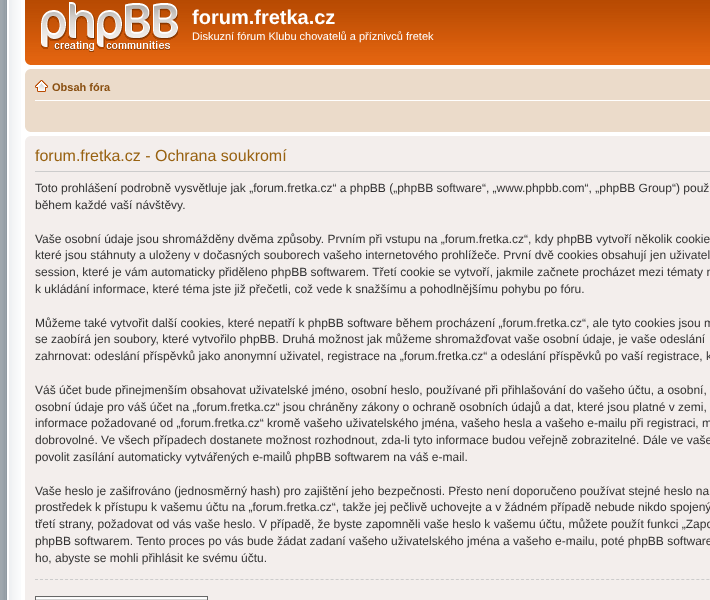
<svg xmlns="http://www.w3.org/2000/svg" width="710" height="600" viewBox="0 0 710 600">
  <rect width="100%" height="100%" fill="rgb(255,255,255)"/>
  <image x="0" y="0" width="21" height="600" href="pic1.png"/>
  <image x="25" y="0" width="685" height="65" href="pic2.png"/>
  <image x="41" y="2" width="137" height="50" href="pic3.png"/>
  <text x="192" y="24" font-family="Liberation Sans" font-size="20" font-weight="bold" fill="rgb(255,255,255)">forum.fretka.cz</text>
  <text x="192" y="40" font-family="Liberation Sans" font-size="11" fill="rgb(255,255,255)">Diskuzní fórum Klubu chovatelů a příznivců fretek</text>
  <image x="25" y="60" width="5" height="5" href="pic4.png"/>
  <rect x="25" y="69" width="685" height="63" fill="rgb(235,219,202)"/>
  <image x="25" y="69" width="5" height="5" href="pic5.png"/>
  <rect x="35" y="100" width="675" height="1" fill="rgb(255,255,255)"/>
  <image x="35" y="80" width="13" height="12" href="pic6.png"/>
  <text x="52" y="91" font-family="Liberation Sans" font-size="11" font-weight="bold" fill="rgb(137,79,16)">Obsah fóra</text>
  <image x="25" y="127" width="5" height="5" href="pic7.png"/>
  <rect x="25" y="136" width="685" height="464" fill="rgb(243,238,236)"/>
  <image x="25" y="136" width="5" height="5" href="pic8.png"/>
  <rect x="35" y="171" width="675" height="1" fill="rgb(204,204,204)"/>
  <text x="35" y="161" font-family="Liberation Sans" font-size="16" fill="rgb(152,98,17)">forum.fretka.cz - Ochrana soukromí</text>
  <g font-family="Liberation Sans" font-size="12" fill="rgb(51,51,51)">
    <text>
      <tspan x="35" y="192">Toto prohlášení podrobně vysvětluje jak „forum.fretka.cz“ a phpBB („phpBB software“, „www.phpbb.com“, „phpBB Group“) použ</tspan>
      <tspan x="35" y="209">během každé vaší návštěvy.</tspan>
    </text>
    <text>
      <tspan x="35" y="243">Vaše osobní údaje jsou shromážděny dvěma způsoby. Prvním při vstupu na „forum.fretka.cz“, kdy phpBB vytvoří několik cookie</tspan>
      <tspan x="35" y="259">které jsou stáhnuty a uloženy v dočasných souborech vašeho internetového prohlížeče. První dvě cookies obsahují jen uživatel</tspan>
      <tspan x="35" y="276">session, které je vám automaticky přiděleno phpBB softwarem. Třetí cookie se vytvoří, jakmile začnete procházet mezi tématy n</tspan>
      <tspan x="35" y="293">k ukládání informace, které téma jste již přečetli, což vede k snažšímu a pohodlnějšímu pohybu po fóru.</tspan>
    </text>
    <text>
      <tspan x="35" y="327">Můžeme také vytvořit další cookies, které nepatří k phpBB software během procházení „forum.fretka.cz“, ale tyto cookies jsou m</tspan>
      <tspan x="35" y="343">se zaobírá jen soubory, které vytvořilo phpBB. Druhá možnost jak můžeme shromažďovat vaše osobní údaje, je vaše odeslání</tspan>
      <tspan x="35" y="360">zahrnovat: odeslání příspěvků jako anonymní uživatel, registrace na „forum.fretka.cz“ a odeslání příspěvků po vaší registrace, k</tspan>
    </text>
    <text>
      <tspan x="35" y="394">Váš účet bude přinejmenším obsahovat uživatelské jméno, osobní heslo, používané při přihlašování do vašeho účtu, a osobní,</tspan>
      <tspan x="35" y="411">osobní údaje pro váš účet na „forum.fretka.cz“ jsou chráněny zákony o ochraně osobních údajů a dat, které jsou platné v zemi,</tspan>
      <tspan x="35" y="427">informace požadované od „forum.fretka.cz“ kromě vašeho uživatelského jména, vašeho hesla a vašeho e-mailu při registraci, m</tspan>
      <tspan x="35" y="444">dobrovolné. Ve všech případech dostanete možnost rozhodnout, zda-li tyto informace budou veřejně zobrazitelné. Dále ve vaše</tspan>
      <tspan x="35" y="461">povolit zasílání automaticky vytvářených e-mailů phpBB softwarem na váš e-mail.</tspan>
    </text>
    <text>
      <tspan x="35" y="495">Vaše heslo je zašifrováno (jednosměrný hash) pro zajištění jeho bezpečnosti. Přesto není doporučeno používat stejné heslo na</tspan>
      <tspan x="35" y="511">prostředek k přístupu k vašemu účtu na „forum.fretka.cz“, takže jej pečlivě uchovejte a v žádném případě nebude nikdo spojený</tspan>
      <tspan x="35" y="528">třetí strany, požadovat od vás vaše heslo. V případě, že byste zapomněli vaše heslo k vašemu účtu, můžete použít funkci „Zapo</tspan>
      <tspan x="35" y="545">phpBB softwarem. Tento proces po vás bude žádat zadaní vašeho uživatelského jména a vašeho e-mailu, poté phpBB software</tspan>
      <tspan x="35" y="562">ho, abyste se mohli přihlásit ke svému účtu.</tspan>
    </text>
  </g>
  <path d="M35 579.5H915" fill="none" stroke="rgb(204,204,204)" stroke-dasharray="3 2.01"/>
  <rect x="35" y="597" width="173" height="1" fill="rgb(250,250,250)"/>
  <image x="36" y="598" width="171" height="2" href="pic9.png"/>
  <rect x="35.5" y="596.5" width="172" height="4" fill="none" stroke="rgb(102,102,102)"/>
</svg>
